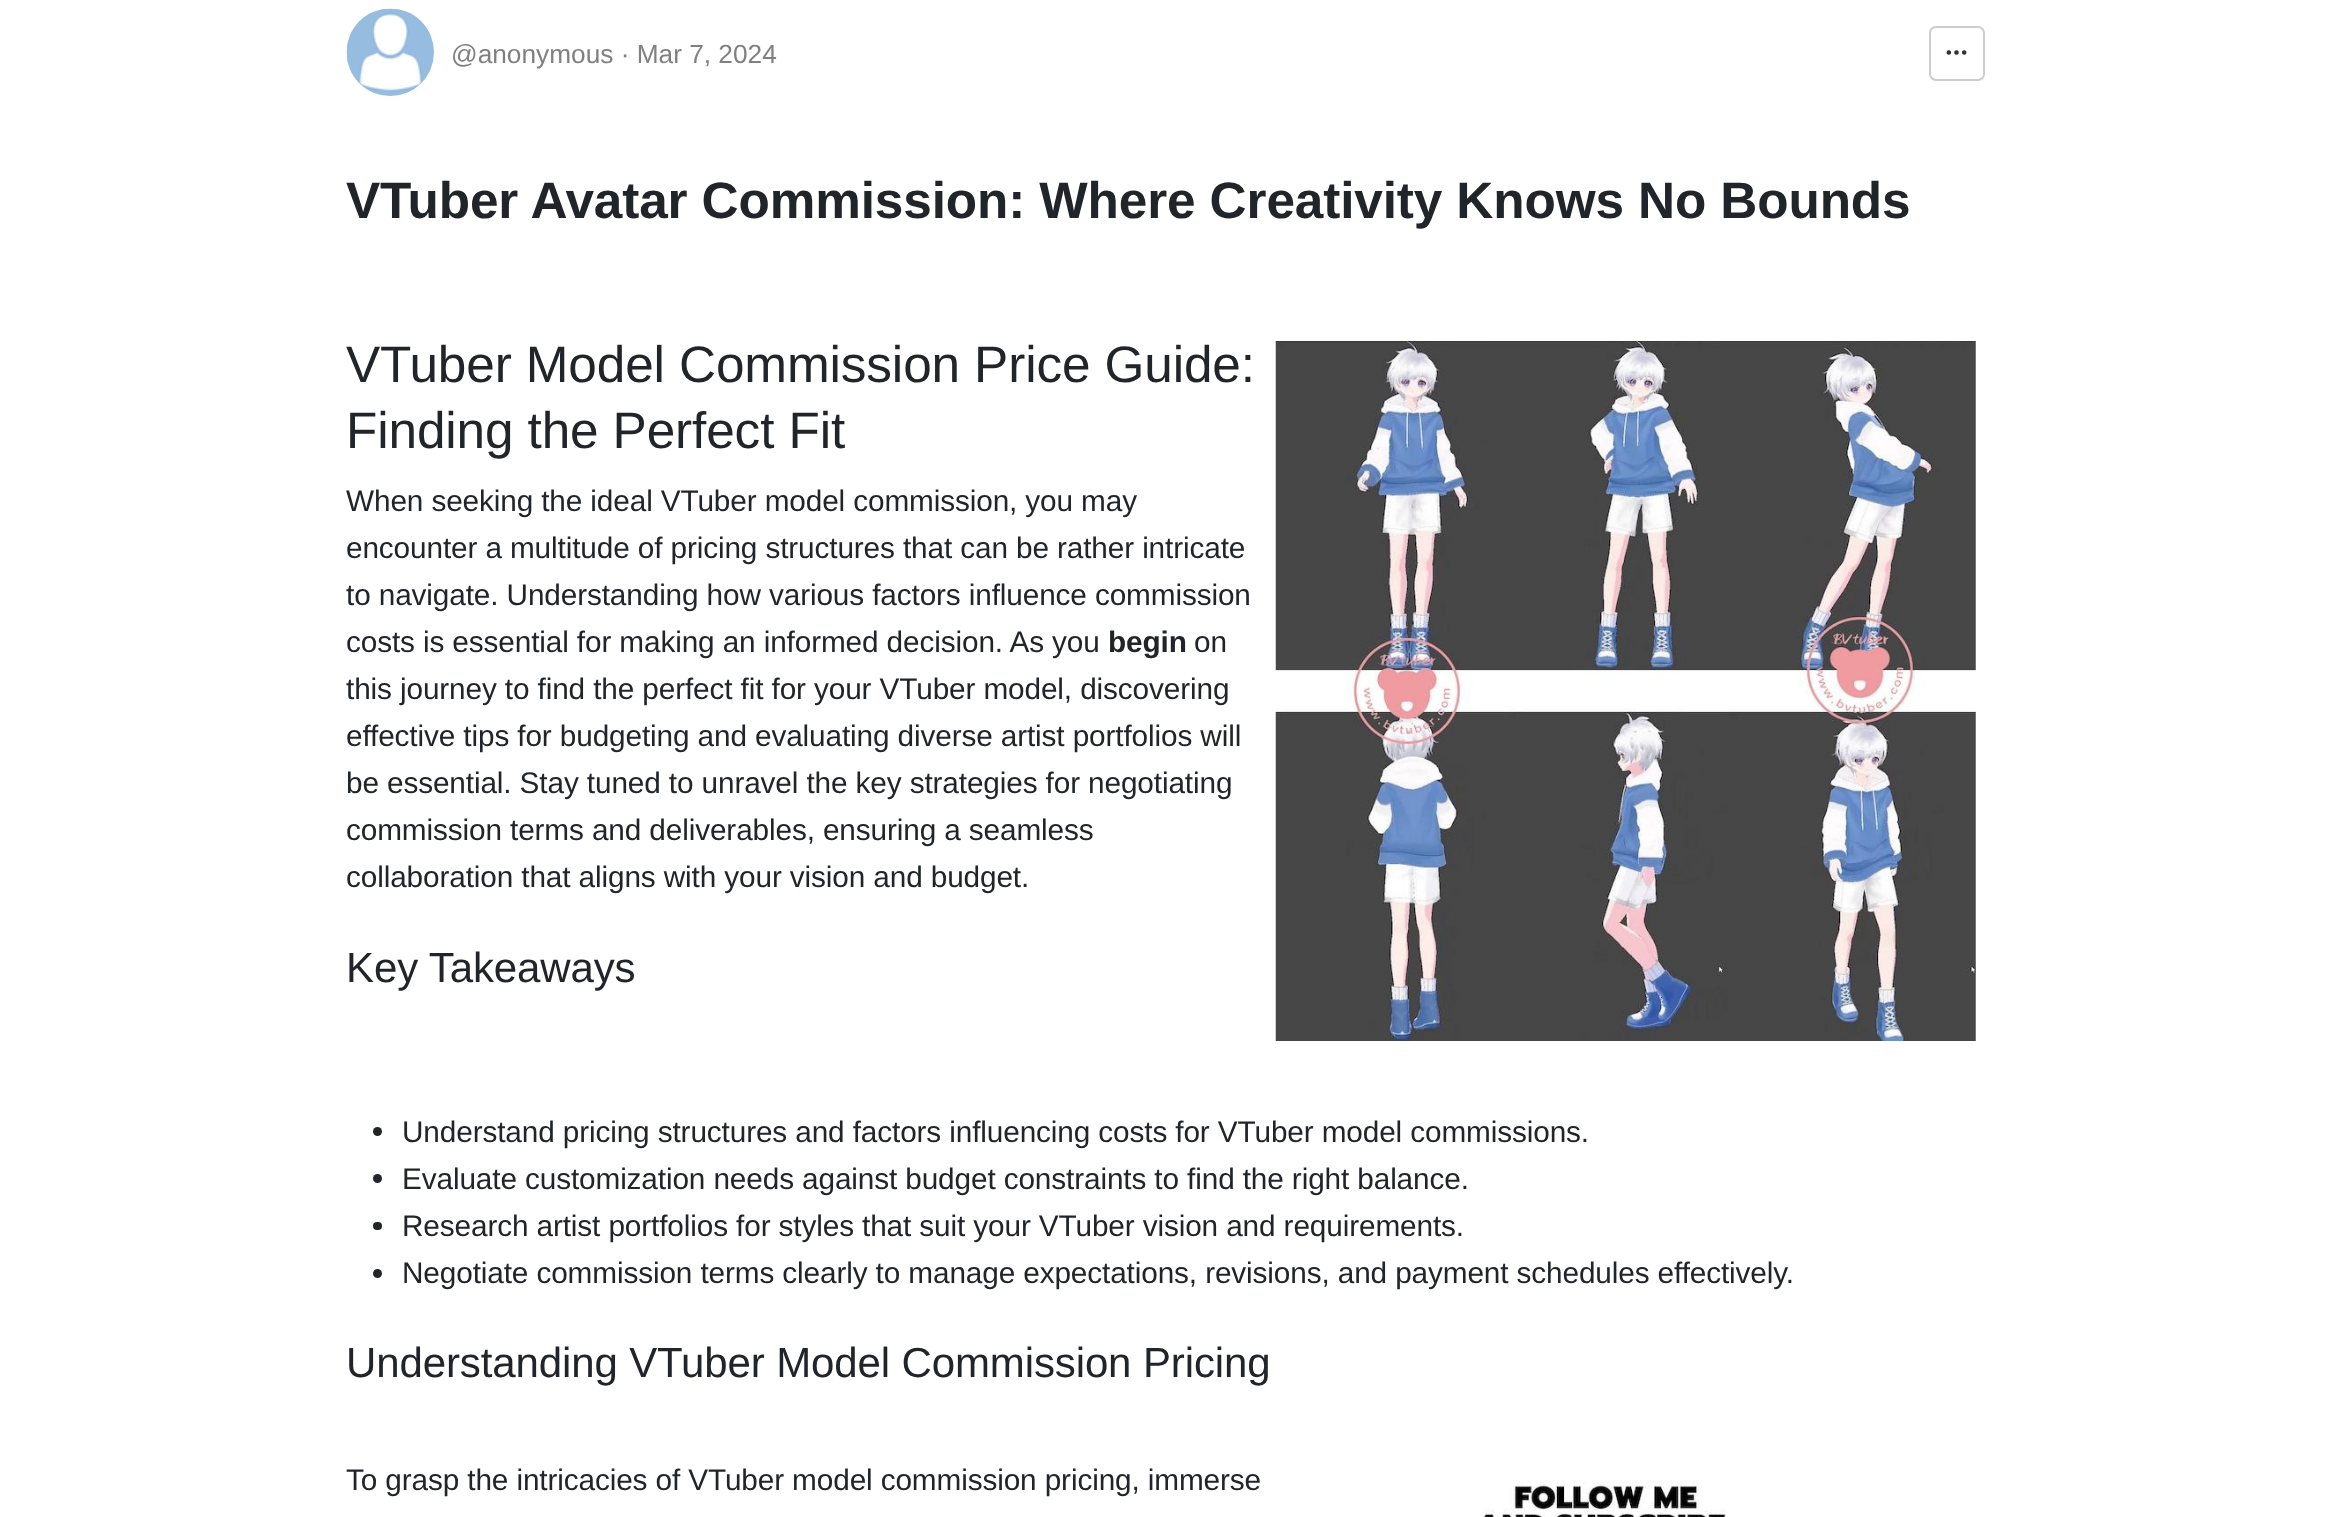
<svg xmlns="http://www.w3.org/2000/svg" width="2328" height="1517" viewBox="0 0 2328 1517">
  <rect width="100%" height="100%" fill="rgb(255,255,255)"/>
  <image x="346" y="8" width="88" height="88" href="pic1.png"/>
  <text x="451" y="63" font-family="Liberation Sans" font-size="26.25" fill="rgb(128,128,128)">@anonymous · Mar 7, 2024</text>
  <rect x="1930" y="27" width="54" height="53" rx="6" fill="none" stroke="rgb(204,204,204)" stroke-width="2"/>
  <image x="1946" y="50" width="21" height="5" href="pic2.png"/>
  <text x="346" y="218" font-family="Liberation Sans" font-size="51.3" font-weight="bold" letter-spacing="-0.12" fill="rgb(33,37,41)">VTuber Avatar Commission: Where Creativity Knows No Bounds</text>
  <g font-family="Liberation Sans" font-size="51.3" letter-spacing="-0.12" fill="rgb(33,37,41)">
    <text>
      <tspan x="346" y="382">VTuber Model Commission Price Guide:</tspan>
      <tspan x="346" y="448">Finding the Perfect Fit</tspan>
    </text>
  </g>
  <image x="1275" y="341" width="701" height="700" href="pic3.png"/>
  <g font-family="Liberation Sans" font-size="29.75" letter-spacing="-0.12" fill="rgb(33,37,41)">
    <text>
      <tspan x="346" y="511">When seeking the ideal VTuber model commission, you may</tspan>
      <tspan x="346" y="558">encounter a multitude of pricing structures that can be rather intricate</tspan>
      <tspan x="346" y="605">to navigate. Understanding how various factors influence commission</tspan>
      <tspan x="346" y="652">costs is essential for making an informed decision. As you</tspan>
    </text>
  </g>
  <text x="1108" y="652" font-family="Liberation Sans" font-size="29.75" font-weight="bold" letter-spacing="-0.12" fill="rgb(33,37,41)">begin</text>
  <g font-family="Liberation Sans" font-size="29.75" letter-spacing="-0.12" fill="rgb(33,37,41)">
    <text x="1194" y="652">on</text>
    <text>
      <tspan x="346" y="699">this journey to find the perfect fit for your VTuber model, discovering</tspan>
      <tspan x="346" y="746">effective tips for budgeting and evaluating diverse artist portfolios will</tspan>
      <tspan x="346" y="793">be essential. Stay tuned to unravel the key strategies for negotiating</tspan>
      <tspan x="346" y="840">commission terms and deliverables, ensuring a seamless</tspan>
      <tspan x="346" y="887">collaboration that aligns with your vision and budget.</tspan>
    </text>
  </g>
  <text x="346" y="982" font-family="Liberation Sans" font-size="42" letter-spacing="-0.12" fill="rgb(33,37,41)">Key Takeaways</text>
  <circle cx="377.5" cy="1131.5" r="4.5" fill="rgb(33,37,41)"/>
  <text x="402" y="1142" font-family="Liberation Sans" font-size="29.75" letter-spacing="-0.12" fill="rgb(33,37,41)">Understand pricing structures and factors influencing costs for VTuber model commissions.</text>
  <circle cx="377.5" cy="1178.5" r="4.5" fill="rgb(33,37,41)"/>
  <text x="402" y="1189" font-family="Liberation Sans" font-size="29.75" letter-spacing="-0.12" fill="rgb(33,37,41)">Evaluate customization needs against budget constraints to find the right balance.</text>
  <rect x="373" y="1222" width="9" height="8" rx="4" fill="rgb(33,37,41)"/>
  <text x="402" y="1236" font-family="Liberation Sans" font-size="29.75" letter-spacing="-0.12" fill="rgb(33,37,41)">Research artist portfolios for styles that suit your VTuber vision and requirements.</text>
  <circle cx="377.5" cy="1273.5" r="4.5" fill="rgb(33,37,41)"/>
  <text x="402" y="1283" font-family="Liberation Sans" font-size="29.75" letter-spacing="-0.12" fill="rgb(33,37,41)">Negotiate commission terms clearly to manage expectations, revisions, and payment schedules effectively.</text>
  <text x="346" y="1377" font-family="Liberation Sans" font-size="42" letter-spacing="-0.12" fill="rgb(33,37,41)">Understanding VTuber Model Commission Pricing</text>
  <text x="346" y="1490" font-family="Liberation Sans" font-size="29.75" letter-spacing="-0.12" fill="rgb(33,37,41)">To grasp the intricacies of VTuber model commission pricing, immerse</text>
  <image x="1481" y="1480" width="246" height="37" href="pic4.png"/>
</svg>
